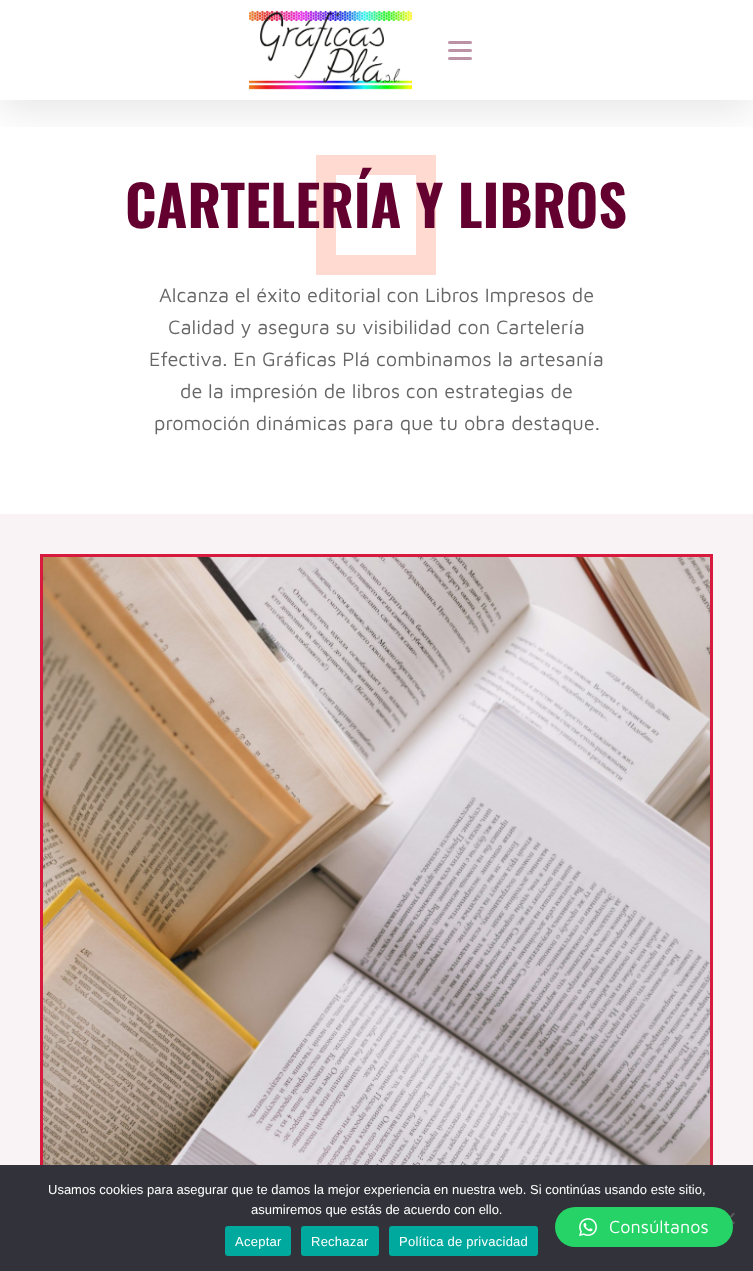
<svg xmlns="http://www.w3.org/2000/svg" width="753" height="1271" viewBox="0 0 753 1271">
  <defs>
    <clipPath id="clip1"><rect x="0" y="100" width="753" height="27"/></clipPath>
  </defs>
  <rect width="100%" height="100%" fill="rgb(255,255,255)"/>
  <g clip-path="url(#clip1)">
    <rect x="0" y="10" width="753" height="100" fill="rgba(0,0,0,0.1)" filter="blur(20px)"/>
  </g>
  <image x="249" y="10" width="163" height="80" href="pic1.png"/>
  <rect x="448" y="41" width="24" height="3" rx="1.5" fill="rgb(190,146,166)"/>
  <rect x="448" y="49" width="24" height="3" rx="1.5" fill="rgb(190,146,166)"/>
  <rect x="448" y="57" width="24" height="3" rx="1.5" fill="rgb(190,146,166)"/>
  <rect x="326" y="165" width="100" height="100" fill="none" stroke="rgb(255,218,208)" stroke-width="20"/>
  <text x="125" y="228" font-family="Oswald" font-size="56" font-weight="bold" fill="rgb(99,0,47)">CARTELERÍA Y LIBROS</text>
  <g font-family="Maven Pro" font-size="20" fill="rgb(102,102,102)">
    <text x="159" y="302">Alcanza el éxito editorial con Libros Impresos de</text>
    <text x="168" y="334">Calidad y asegura su visibilidad con Cartelería</text>
    <text x="149" y="366">Efectiva. En Gráficas Plá combinamos la artesanía</text>
    <text x="180" y="398">de la impresión de libros con estrategias de</text>
    <text x="154" y="430">promoción dinámicas para que tu obra destaque.</text>
  </g>
  <rect x="0" y="514" width="753" height="651" fill="rgb(249,243,245)"/>
  <rect x="41.5" y="555.5" width="670" height="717" fill="none" stroke="rgb(215,25,61)" stroke-width="3"/>
  <image x="43" y="557" width="667" height="608" href="pic2.png"/>
  <rect x="0" y="1165" width="753" height="106" fill="rgb(50,50,58)"/>
  <g font-family="Liberation Sans" font-size="13" fill="rgb(255,255,255)">
    <text x="48" y="1194">Usamos cookies para asegurar que te damos la mejor experiencia en nuestra web. Si continúas usando este sitio,</text>
    <text x="251" y="1214">asumiremos que estás de acuerdo con ello.</text>
  </g>
  <path d="M733.5 1212.5L735 1214L724.5 1224.5L723 1223Z" fill="rgb(89,89,93)"/>
  <path d="M723 1214L724.5 1212.5L735 1223L733.5 1224.5Z" fill="rgb(89,89,93)"/>
  <rect x="225" y="1226" width="66" height="30" rx="3" fill="rgb(0,169,157)"/>
  <text x="235" y="1246" font-family="Liberation Sans" font-size="13" letter-spacing="0.25" fill="rgb(255,255,255)">Aceptar</text>
  <rect x="301" y="1226" width="78" height="30" rx="3" fill="rgb(0,169,157)"/>
  <text x="311" y="1246" font-family="Liberation Sans" font-size="13" letter-spacing="0.25" fill="rgb(255,255,255)">Rechazar</text>
  <rect x="389" y="1226" width="149" height="30" rx="3" fill="rgb(0,169,157)"/>
  <text x="399" y="1246" font-family="Liberation Sans" font-size="13" letter-spacing="0.25" fill="rgb(255,255,255)">Política de privacidad</text>
  <rect x="555" y="1207" width="178" height="40" rx="20" fill="rgb(37,211,102)"/>
  <image x="579" y="1218" width="18" height="19" href="pic3.png"/>
  <text x="609" y="1233" font-family="Maven Pro" font-size="18" fill="rgb(255,255,255)">Consúltanos</text>
</svg>
